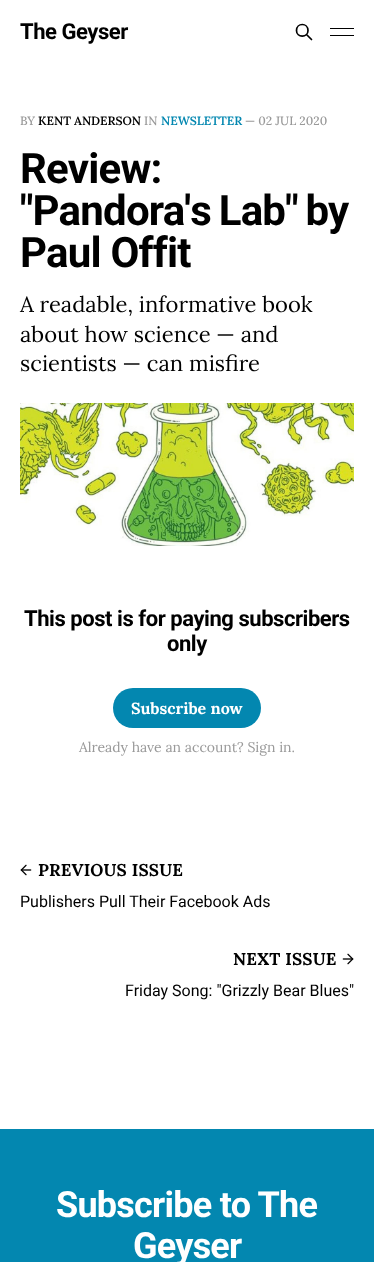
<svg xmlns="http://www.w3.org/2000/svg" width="374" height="1262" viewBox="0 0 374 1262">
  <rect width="100%" height="100%" fill="rgb(255,255,255)"/>
  <text x="20" y="39" font-family="Roboto" font-size="22" font-weight="bold" letter-spacing="-0.45" fill="rgb(0,0,0)">The Geyser</text>
  <path d="M311.5 39.5L306.5 34.5M308 30.5C308 38 296.5 38 296.5 30.5C296.5 22.5 308 22.5 308 30.5Z" fill="none" stroke="rgb(0,0,0)" stroke-width="1.7" stroke-linecap="round" stroke-linejoin="round"/>
  <rect x="330" y="28" width="24" height="1" fill="rgb(0,0,0)"/>
  <rect x="330" y="35" width="24" height="1" fill="rgb(0,0,0)"/>
  <text x="20" y="125" font-family="Lora" font-size="12" font-weight="500" fill="rgb(153,153,153)">BY</text>
  <text x="38" y="125" font-family="Lora" font-size="12" font-weight="600" fill="rgb(0,0,0)">KENT ANDERSON</text>
  <text x="144" y="125" font-family="Lora" font-size="12" font-weight="500" fill="rgb(153,153,153)">IN</text>
  <text x="161" y="125" font-family="Lora" font-size="12" font-weight="600" fill="rgb(3,135,176)">NEWSLETTER</text>
  <text x="245" y="125" font-family="Lora" font-size="12" font-weight="500" fill="rgb(153,153,153)">— 02 JUL 2020</text>
  <g font-family="Roboto" font-size="42" font-weight="bold" letter-spacing="-0.8" fill="rgb(0,0,0)">
    <text>
      <tspan x="20" y="183">Review:</tspan>
      <tspan x="20" y="225" word-spacing="-2">"Pandora's Lab" by</tspan>
      <tspan x="20" y="267">Paul Offit</tspan>
    </text>
  </g>
  <g font-family="Lora" font-size="22" fill="rgb(0,0,0)">
    <text>
      <tspan x="20" y="312">A readable, informative book</tspan>
      <tspan x="20" y="342">about how science — and</tspan>
      <tspan x="20" y="371">scientists — can misfire</tspan>
    </text>
  </g>
  <image x="20" y="403" width="334" height="143" href="pic1.png"/>
  <g font-family="Roboto" font-size="22" font-weight="bold" letter-spacing="-0.45" fill="rgb(0,0,0)">
    <text x="24" y="626">This post is for paying subscribers</text>
    <text x="167" y="651">only</text>
  </g>
  <rect x="113" y="688" width="148" height="40" rx="20" fill="rgb(3,135,176)"/>
  <text x="131" y="714" font-family="Lora" font-size="16" font-weight="bold" fill="rgb(255,255,255)">Subscribe now</text>
  <text x="79" y="752" font-family="Lora" font-size="14" fill="rgb(153,153,153)">Already have an account? Sign in.</text>
  <image x="20" y="864" width="12" height="12" href="pic2.png"/>
  <text x="38" y="876" font-family="Lora" font-size="17" font-weight="bold" letter-spacing="0.2" fill="rgb(0,0,0)">PREVIOUS ISSUE</text>
  <text x="20" y="907" font-family="Roboto" font-size="16" fill="rgb(0,0,0)">Publishers Pull Their Facebook Ads</text>
  <text x="233" y="965" font-family="Lora" font-size="17" font-weight="bold" letter-spacing="0.2" fill="rgb(0,0,0)">NEXT ISSUE</text>
  <image x="342" y="953" width="12" height="12" href="pic3.png"/>
  <text x="125" y="996" font-family="Roboto" font-size="16" fill="rgb(0,0,0)">Friday Song: "Grizzly Bear Blues"</text>
  <rect x="0" y="1129" width="374" height="133" fill="rgb(3,135,176)"/>
  <g font-family="Roboto" font-size="36" font-weight="bold" letter-spacing="-0.75" fill="rgb(255,255,255)">
    <text x="56" y="1217">Subscribe to The</text>
    <text x="133" y="1258">Geyser</text>
  </g>
</svg>
